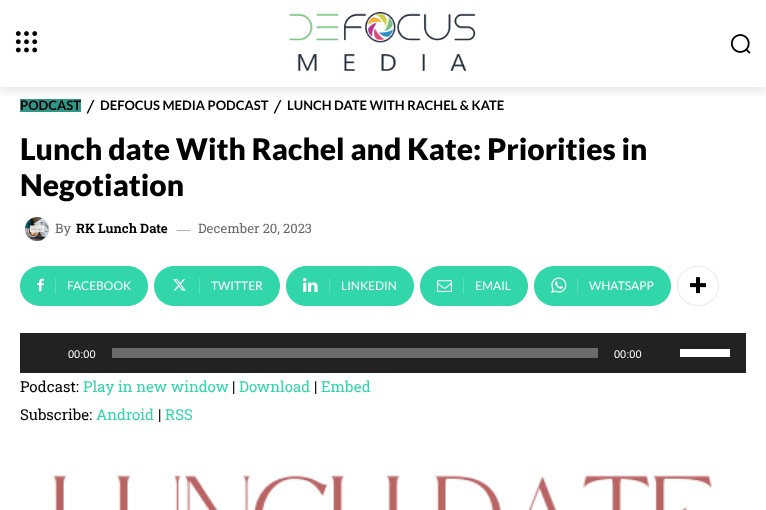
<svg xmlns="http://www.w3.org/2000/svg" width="766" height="510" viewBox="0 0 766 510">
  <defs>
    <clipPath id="clip1"><rect x="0" y="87" width="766" height="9"/></clipPath>
  </defs>
  <rect width="100%" height="100%" fill="rgb(255,255,255)"/>
  <image x="15" y="31" width="23" height="22" href="pic1.png"/>
  <image x="289" y="11" width="187" height="60" href="pic2.png"/>
  <image x="730" y="34" width="21" height="20" href="pic3.png"/>
  <rect x="20" y="99" width="61" height="13" fill="rgb(47,150,136)"/>
  <path d="M93 100L86.5 113.5H88L94.5 100Z" fill="rgb(0,0,0)"/>
  <path d="M280 100L273.5 113.5H275L281.5 100Z" fill="rgb(0,0,0)"/>
  <g clip-path="url(#clip1)">
    <rect x="0" y="6" width="766" height="87" fill="rgba(0,0,0,0.08)" filter="blur(4px)"/>
  </g>
  <g font-family="Lato" font-size="13" font-weight="bold" fill="rgb(0,0,0)">
    <text x="20" y="110">PODCAST</text>
    <text x="100" y="110">DEFOCUS MEDIA PODCAST</text>
    <text x="287" y="110">LUNCH DATE WITH RACHEL &amp; KATE</text>
  </g>
  <g font-family="Lato" font-size="30" font-weight="900" fill="rgb(0,0,0)">
    <text>
      <tspan x="20" y="160">Lunch date With Rachel and Kate: Priorities in</tspan>
      <tspan x="20" y="196">Negotiation</tspan>
    </text>
  </g>
  <image x="25" y="217" width="24" height="24" href="pic4.png"/>
  <text x="55" y="233" font-family="Roboto Slab" font-size="13" fill="rgb(102,102,102)">By</text>
  <text x="76" y="233" font-family="Roboto Slab" font-size="13" font-weight="bold" fill="rgb(0,0,0)">RK Lunch Date</text>
  <path d="M176.5 230.5H190.5V231H176.5Z" fill="rgb(102,102,102)"/>
  <text x="198" y="233" font-family="Roboto Slab" font-size="13" fill="rgb(102,102,102)">December 20, 2023</text>
  <path d="M55 266H128C139 266 148 275 148 286C148 297 139 306 128 306H55Z" fill="rgb(49,214,170)"/>
  <path d="M40 266H61V306H40C29 306 20 297 20 286C20 275 29 266 40 266Z" fill="rgb(49,214,170)"/>
  <image x="37" y="278" width="7" height="14" href="pic5.png"/>
  <rect x="55" y="278" width="1" height="16" fill="rgb(90,222,187)"/>
  <text x="67" y="290" font-family="Lato" font-size="12" fill="rgb(255,255,255)">FACEBOOK</text>
  <path d="M199 266H260C271 266 280 275 280 286C280 297 271 306 260 306H199Z" fill="rgb(49,214,170)"/>
  <path d="M174 266H205V306H174C163 306 154 297 154 286C154 275 163 266 174 266Z" fill="rgb(49,214,170)"/>
  <image x="173" y="279" width="13" height="12" href="pic6.png"/>
  <rect x="199" y="278" width="1" height="16" fill="rgb(90,222,187)"/>
  <text x="211" y="290" font-family="Lato" font-size="12" fill="rgb(255,255,255)">TWITTER</text>
  <path d="M329 266H394C405 266 414 275 414 286C414 297 405 306 394 306H329Z" fill="rgb(49,214,170)"/>
  <path d="M306 266H335V306H306C295 306 286 297 286 286C286 275 295 266 306 266Z" fill="rgb(49,214,170)"/>
  <image x="303" y="278" width="15" height="14" href="pic7.png"/>
  <rect x="329" y="278" width="1" height="16" fill="rgb(90,222,187)"/>
  <text x="341" y="290" font-family="Lato" font-size="12" fill="rgb(255,255,255)">LINKEDIN</text>
  <path d="M463 266H508C519 266 528 275 528 286C528 297 519 306 508 306H463Z" fill="rgb(49,214,170)"/>
  <path d="M440 266H469V306H440C429 306 420 297 420 286C420 275 429 266 440 266Z" fill="rgb(49,214,170)"/>
  <image x="437" y="280" width="15" height="12" href="pic8.png"/>
  <rect x="463" y="278" width="1" height="16" fill="rgb(90,222,187)"/>
  <text x="475" y="290" font-family="Lato" font-size="12" fill="rgb(255,255,255)">EMAIL</text>
  <path d="M577 266H651C662 266 671 275 671 286C671 297 662 306 651 306H577Z" fill="rgb(49,214,170)"/>
  <path d="M554 266H583V306H554C543 306 534 297 534 286C534 275 543 266 554 266Z" fill="rgb(49,214,170)"/>
  <image x="551" y="277" width="16" height="16" href="pic9.png"/>
  <rect x="577" y="278" width="1" height="16" fill="rgb(90,222,187)"/>
  <text x="589" y="290" font-family="Lato" font-size="12" fill="rgb(255,255,255)">WHATSAPP</text>
  <rect x="677.5" y="266.5" width="41" height="39" rx="19.5" fill="none" stroke="rgb(233,233,233)"/>
  <image x="690" y="277" width="16" height="17" href="pic10.png"/>
  <rect x="20" y="333" width="726" height="40" fill="rgb(34,34,34)"/>
  <text x="68" y="358" font-family="Liberation Sans" font-size="11" fill="rgb(255,255,255)">00:00</text>
  <rect x="112" y="348" width="486" height="10" fill="rgb(107,107,107)"/>
  <text x="614" y="358" font-family="Liberation Sans" font-size="11" fill="rgb(255,255,255)">00:00</text>
  <rect x="680" y="349" width="50" height="8" fill="rgb(255,255,255)"/>
  <text x="20" y="392" font-family="Roboto Slab" font-size="15" fill="rgb(0,0,0)">Podcast:</text>
  <text x="83" y="392" font-family="Roboto Slab" font-size="15" fill="rgb(49,214,170)">Play in new window</text>
  <text x="232" y="392" font-family="Roboto Slab" font-size="15" fill="rgb(0,0,0)">|</text>
  <text x="239" y="392" font-family="Roboto Slab" font-size="15" fill="rgb(49,214,170)">Download</text>
  <text x="314" y="392" font-family="Roboto Slab" font-size="15" fill="rgb(0,0,0)">|</text>
  <text x="321" y="392" font-family="Roboto Slab" font-size="15" fill="rgb(49,214,170)">Embed</text>
  <text x="20" y="420" font-family="Roboto Slab" font-size="15" fill="rgb(0,0,0)">Subscribe:</text>
  <text x="96" y="420" font-family="Roboto Slab" font-size="15" fill="rgb(49,214,170)">Android</text>
  <text x="158" y="420" font-family="Roboto Slab" font-size="15" fill="rgb(0,0,0)">|</text>
  <text x="165" y="420" font-family="Roboto Slab" font-size="15" fill="rgb(49,214,170)">RSS</text>
  <image x="53" y="475" width="660" height="35" href="pic11.png"/>
</svg>
